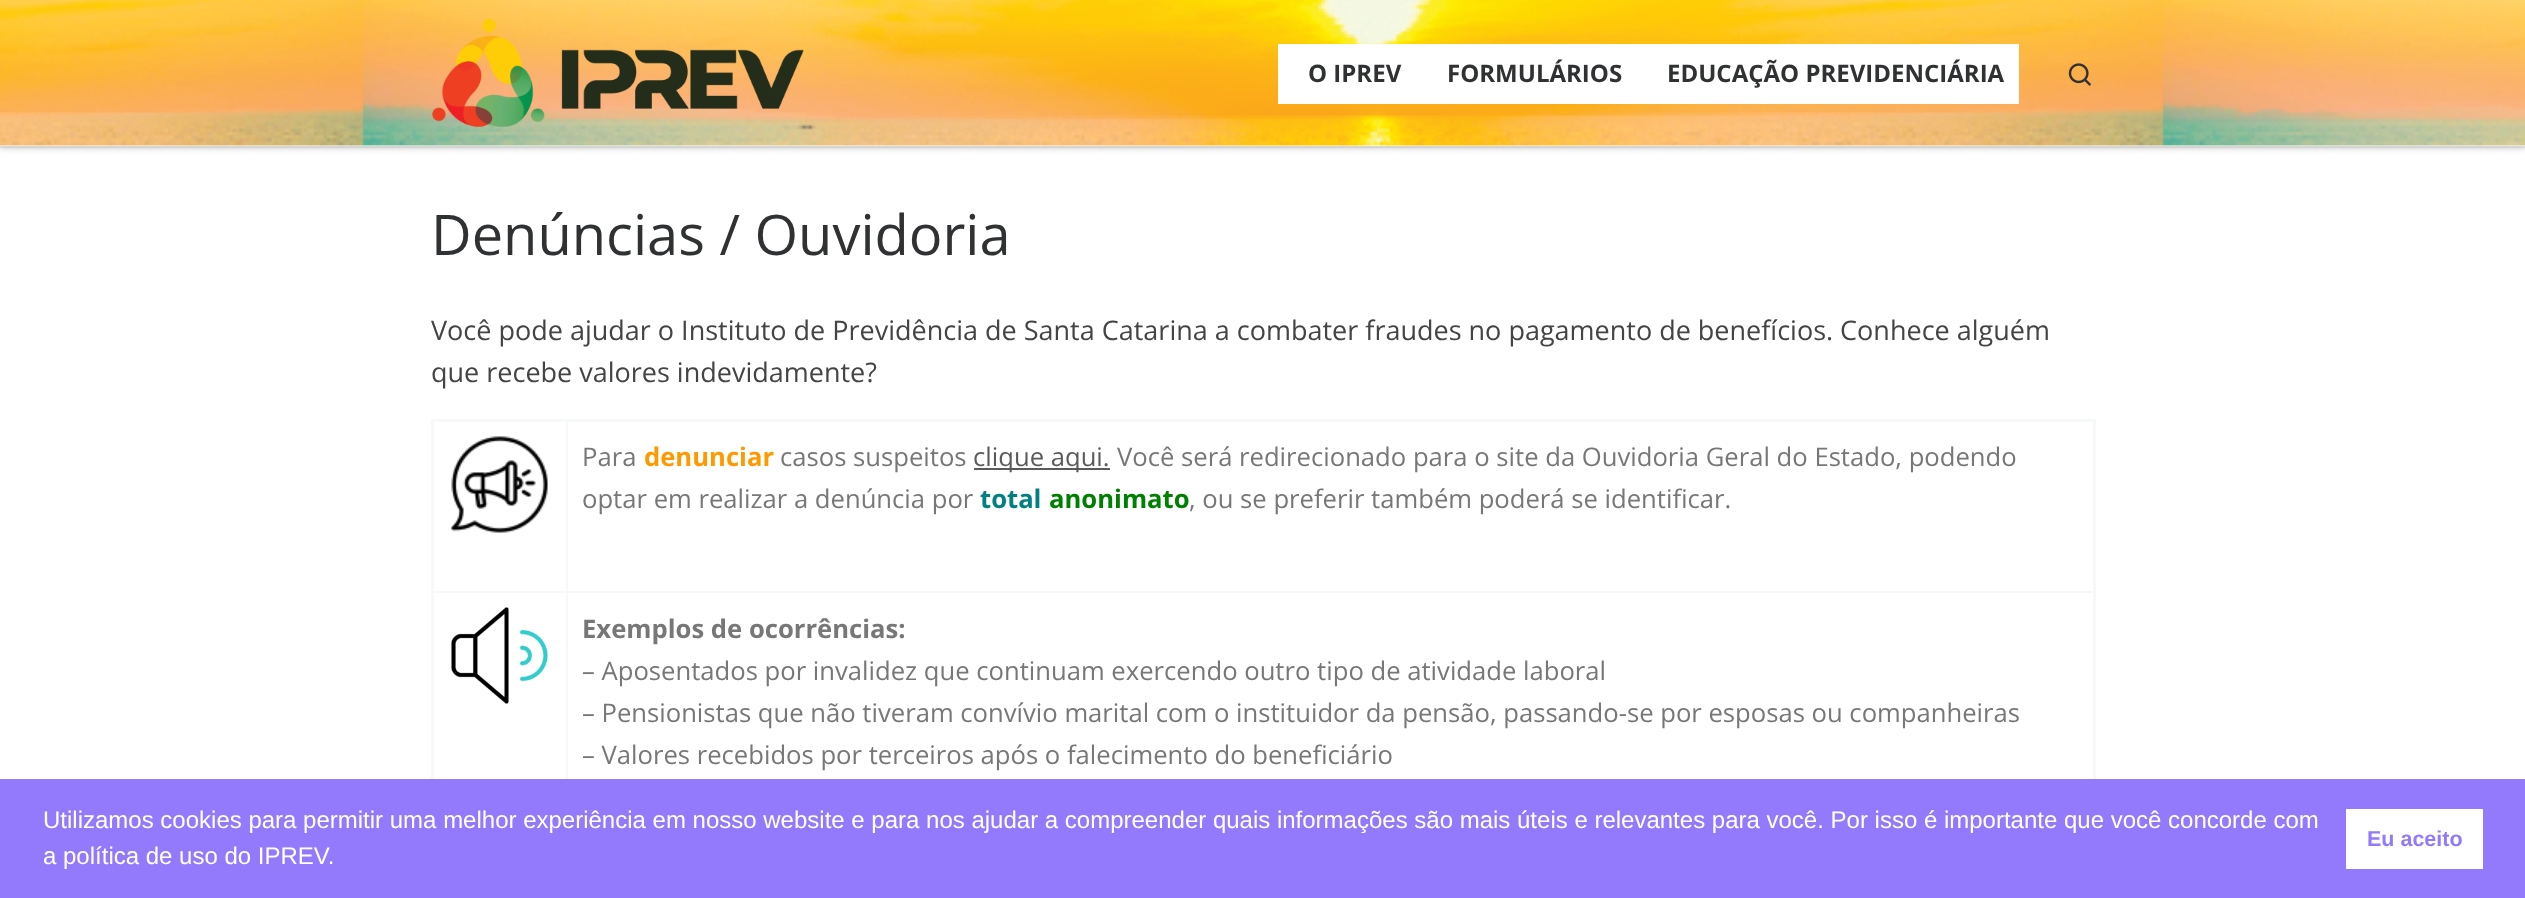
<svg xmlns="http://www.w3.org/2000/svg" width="2525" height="898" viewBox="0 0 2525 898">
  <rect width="100%" height="100%" fill="rgb(255,255,255)"/>
  <rect x="0" y="3" width="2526" height="147" fill="rgba(102,102,102,0.08)" filter="blur(1.5px)"/>
  <rect x="0" y="147" width="2525" height="1" fill="rgba(49,49,49,0.09)"/>
  <rect x="0" y="146" width="2525" height="1" fill="rgb(239,239,239)"/>
  <rect x="0" y="0" width="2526" height="146" fill="rgba(0,0,0,0.2)" filter="blur(4px)"/>
  <rect x="0" y="145" width="2525" height="1" fill="rgb(255,255,255)"/>
  <image x="0" y="0" width="2525" height="146" href="pic1.png"/>
  <image x="432" y="18" width="372" height="109" href="pic2.png"/>
  <rect x="1278" y="44" width="741" height="60" fill="rgb(255,255,255)"/>
  <g font-family="Open Sans" font-size="24" font-weight="bold" fill="rgb(48,49,51)">
    <text x="1308" y="82">O IPREV</text>
    <text x="1447" y="82">FORMULÁRIOS</text>
    <text x="1667" y="82">EDUCAÇÃO PREVIDENCIÁRIA</text>
  </g>
  <image x="2068" y="63" width="24" height="23" href="pic3.png"/>
  <text x="431" y="255" font-family="Open Sans" font-size="56" fill="rgb(48,49,51)">Denúncias / Ouvidoria</text>
  <g font-family="Open Sans" font-size="27" fill="rgb(68,68,68)">
    <text>
      <tspan x="431" y="340">Você pode ajudar o Instituto de Previdência de Santa Catarina a combater fraudes no pagamento de benefícios. Conhece alguém</tspan>
      <tspan x="431" y="382">que recebe valores indevidamente?</tspan>
    </text>
  </g>
  <rect x="566" y="591" width="1530" height="2" fill="rgb(247,248,249)"/>
  <rect x="566" y="591" width="2" height="188" fill="rgb(247,248,249)"/>
  <rect x="432" y="591" width="135" height="2" fill="rgb(247,248,249)"/>
  <rect x="566" y="419" width="2" height="174" fill="rgb(247,248,249)"/>
  <rect x="431" y="419" width="1665" height="3" fill="rgb(247,248,249)"/>
  <rect x="2093" y="419" width="3" height="360" fill="rgb(247,248,249)"/>
  <rect x="431" y="419" width="3" height="360" fill="rgb(247,248,249)"/>
  <image x="451" y="436" width="97" height="97" href="pic4.png"/>
  <text x="582" y="466" font-family="Open Sans" font-size="25.65" fill="rgb(119,119,119)">Para</text>
  <text x="644" y="466" font-family="Open Sans" font-size="25.65" font-weight="bold" fill="rgb(255,153,0)">denunciar</text>
  <text x="780" y="466" font-family="Open Sans" font-size="25.65" fill="rgb(119,119,119)">casos suspeitos</text>
  <rect x="974" y="468" width="136" height="2" fill="rgb(90,90,90)"/>
  <text x="973" y="466" font-family="Open Sans" font-size="25.65" fill="rgb(90,90,90)">clique aqui.</text>
  <g font-family="Open Sans" font-size="25.65" fill="rgb(119,119,119)">
    <text x="1117" y="466">Você será redirecionado para o site da Ouvidoria Geral do Estado, podendo</text>
    <text x="582" y="508">optar em realizar a denúncia por</text>
  </g>
  <text x="980" y="508" font-family="Open Sans" font-size="25.65" font-weight="bold" fill="rgb(0,128,128)">total</text>
  <text x="1049" y="508" font-family="Open Sans" font-size="25.65" font-weight="bold" fill="rgb(0,128,0)">anonimato</text>
  <text x="1189" y="508" font-family="Open Sans" font-size="25.65" fill="rgb(119,119,119)">, ou se preferir também poderá se identificar.</text>
  <image x="451" y="607" width="97" height="97" href="pic5.png"/>
  <text x="582" y="638" font-family="Open Sans" font-size="25.65" font-weight="bold" fill="rgb(119,119,119)">Exemplos de ocorrências:</text>
  <g font-family="Open Sans" font-size="25.65" fill="rgb(119,119,119)">
    <text>
      <tspan x="582" y="680">– Aposentados por invalidez que continuam exercendo outro tipo de atividade laboral</tspan>
      <tspan x="582" y="722">– Pensionistas que não tiveram convívio marital com o instituidor da pensão, passando-se por esposas ou companheiras</tspan>
      <tspan x="582" y="764">– Valores recebidos por terceiros após o falecimento do beneficiário</tspan>
    </text>
  </g>
  <rect x="0" y="779" width="2525" height="119" fill="rgb(147,122,252)"/>
  <g font-family="Liberation Sans" font-size="24" fill="rgb(255,255,255)">
    <text>
      <tspan x="43" y="828">Utilizamos cookies para permitir uma melhor experiência em nosso website e para nos ajudar a compreender quais informações são mais úteis e relevantes para você. Por isso é importante que você concorde com</tspan>
      <tspan x="43" y="864">a política de uso do IPREV.</tspan>
    </text>
  </g>
  <rect x="2346" y="809" width="137" height="60" fill="rgb(255,255,255)"/>
  <text x="2367" y="846" font-family="Liberation Sans" font-size="21.5" font-weight="bold" fill="rgb(147,122,252)">Eu aceito</text>
</svg>
